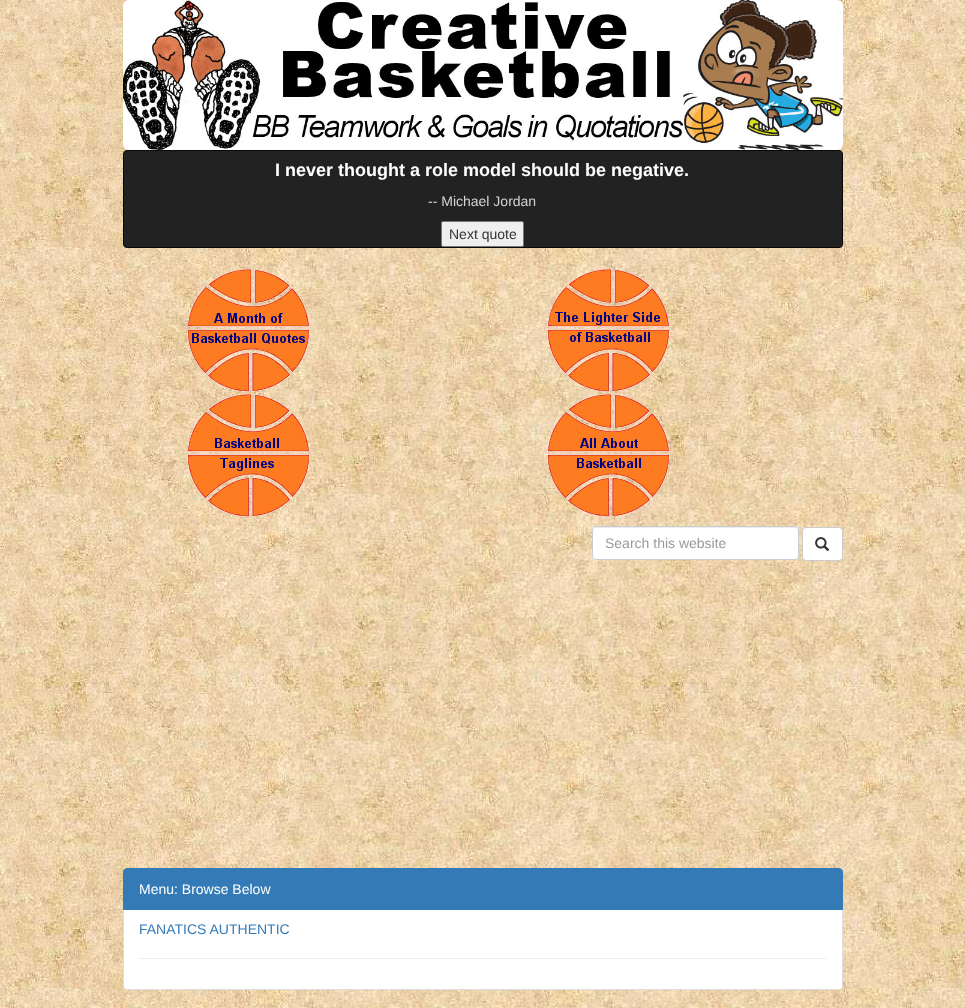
<svg xmlns="http://www.w3.org/2000/svg" width="965" height="1008" viewBox="0 0 965 1008">
  <rect width="100%" height="100%" fill="rgb(255,255,255)"/>
  <image x="0" y="0" width="965" height="1008" href="pic1.png"/>
  <image x="123" y="0" width="720" height="150" href="pic2.png"/>
  <rect x="123.5" y="150.5" width="719" height="97" rx="3.5" fill="rgb(34,34,34)" stroke="rgb(8,8,8)"/>
  <text x="275" y="176" font-family="Liberation Sans" font-size="18" font-weight="bold" fill="rgb(255,255,255)">I never thought a role model should be negative.</text>
  <text x="428" y="206" font-family="Liberation Sans" font-size="14" fill="rgb(211,211,211)">-- Michael Jordan</text>
  <rect x="441.5" y="221.5" width="82" height="25" rx="1.5" fill="rgb(239,239,239)" stroke="rgb(118,118,118)"/>
  <text x="449" y="239" font-family="Liberation Sans" font-size="14" fill="rgb(51,51,51)">Next quote</text>
  <image x="187" y="269" width="123" height="123" href="pic3.png"/>
  <image x="547" y="269" width="123" height="123" href="pic4.png"/>
  <image x="187" y="394" width="123" height="123" href="pic5.png"/>
  <image x="547" y="394" width="123" height="123" href="pic6.png"/>
  <rect x="592" y="526" width="207" height="34" rx="4" fill="rgb(255,255,255)"/>
  <path d="M596 528H795C797 528 798 529 798 531C798 529 797 527 795 527H596C594 527 593 529 593 531C593 529 594 528 596 528Z" fill="rgb(236,236,236)"/>
  <rect x="592.5" y="526.5" width="206" height="33" rx="3.5" fill="none" stroke="rgb(204,204,204)"/>
  <text x="605" y="548" font-family="Liberation Sans" font-size="14" fill="rgb(153,153,153)">Search this website</text>
  <rect x="802.5" y="527.5" width="40" height="33" rx="3.5" fill="rgb(255,255,255)" stroke="rgb(204,204,204)"/>
  <image x="815" y="537" width="15" height="14" href="pic7.png"/>
  <path d="M123.5 909.5H842.5V986C842.5 988 841 989.5 839 989.5H127C125 989.5 123.5 988 123.5 986Z" fill="rgb(255,255,255)" stroke="rgb(221,221,221)"/>
  <path d="M127 868.5H839C841 868.5 842.5 870 842.5 872V909.5H123.5V872C123.5 870 125 868.5 127 868.5Z" fill="rgb(51,122,183)" stroke="rgb(51,122,183)"/>
  <text x="139" y="894" font-family="Liberation Sans" font-size="14" fill="rgb(255,255,255)">Menu: Browse Below</text>
  <text x="139" y="934" font-family="Liberation Sans" font-size="14" fill="rgb(51,122,183)">FANATICS AUTHENTIC</text>
  <rect x="139" y="958" width="688" height="1" fill="rgb(238,238,238)"/>
</svg>
